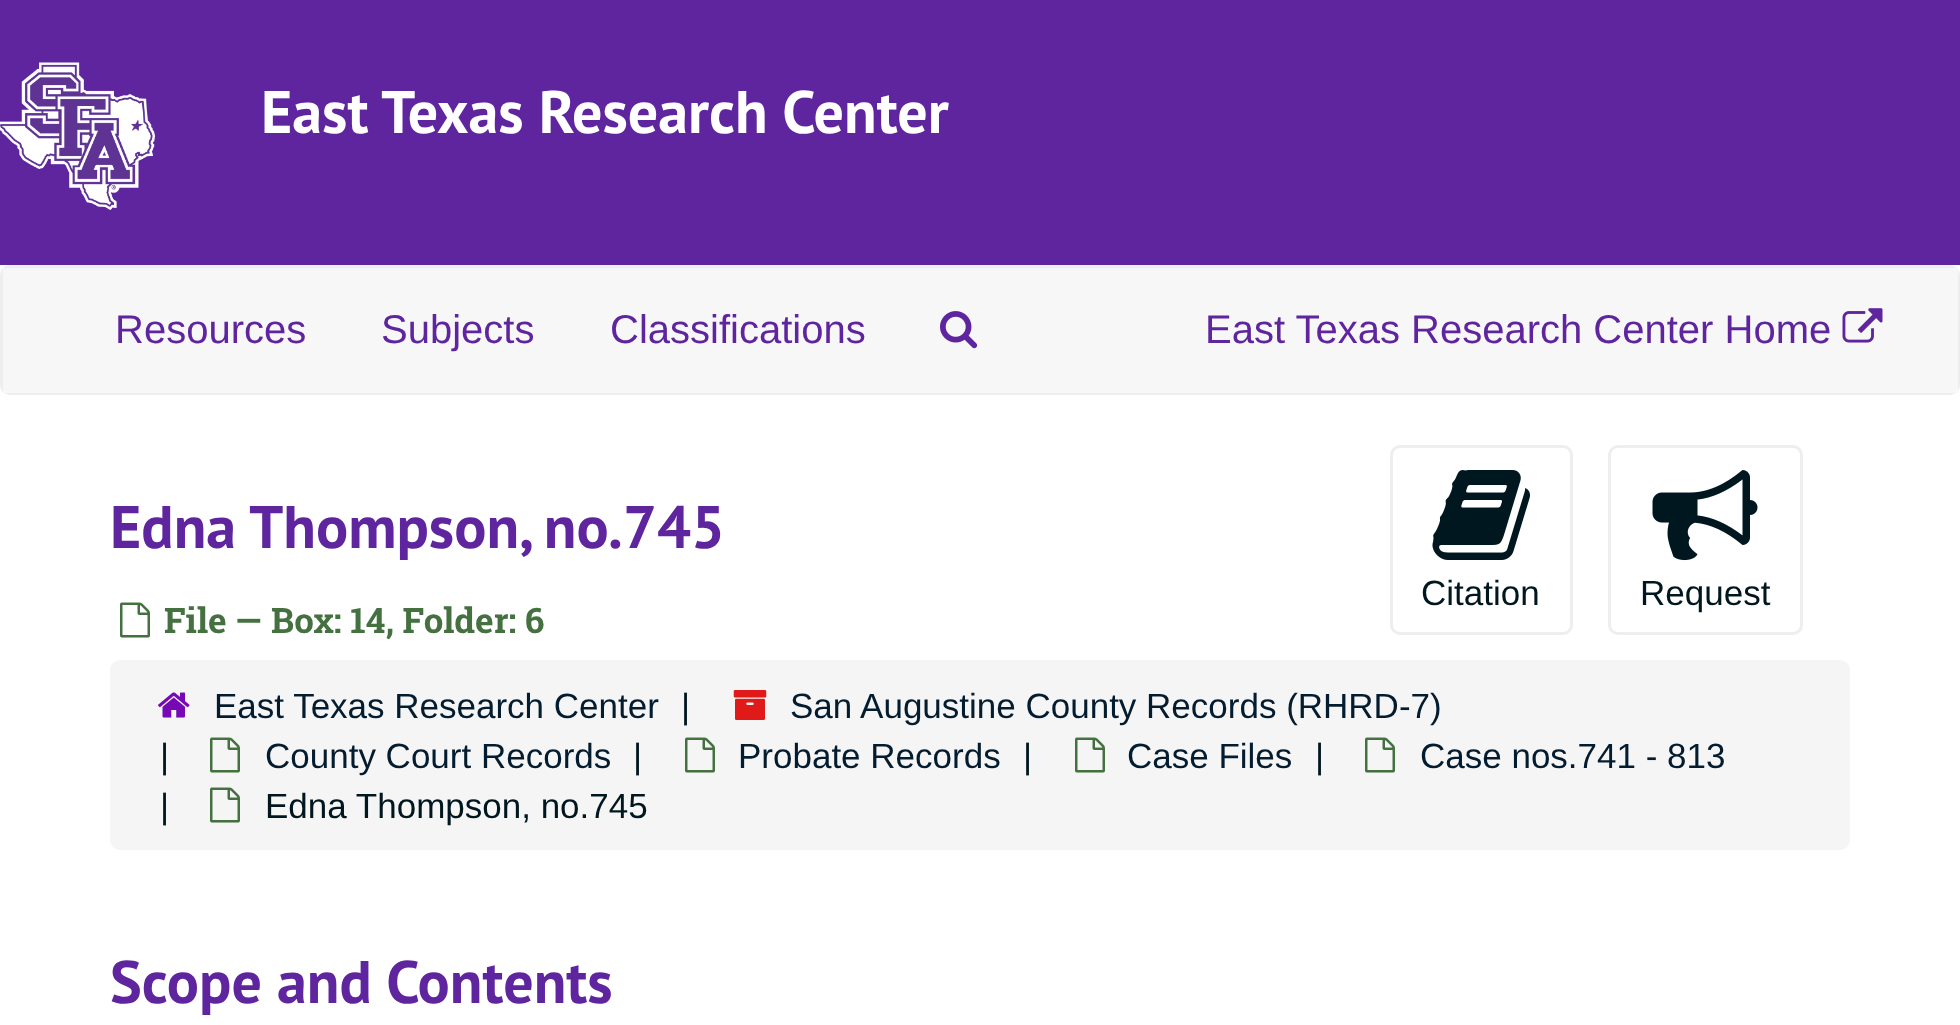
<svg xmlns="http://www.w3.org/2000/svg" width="1960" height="1025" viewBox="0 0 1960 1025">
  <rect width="100%" height="100%" fill="rgb(255,255,255)"/>
  <rect x="0" y="0" width="1960" height="265" fill="rgb(95,37,159)"/>
  <image x="0" y="62" width="155" height="148" href="pic1.png"/>
  <text x="261" y="133" font-family="PT Sans" font-size="60" font-weight="bold" fill="rgb(255,255,255)">East Texas Research Center</text>
  <rect x="1.5" y="266.5" width="1957" height="127" rx="8.5" fill="none" stroke="rgb(238,238,238)" stroke-width="3"/>
  <rect x="3" y="268" width="1955" height="125" fill="rgb(247,247,247)"/>
  <g font-family="Liberation Sans" font-size="40" fill="rgb(95,37,159)">
    <text x="115" y="343">Resources</text>
    <text x="381" y="343">Subjects</text>
    <text x="610" y="343">Classifications</text>
  </g>
  <image x="940" y="311" width="38" height="38" href="pic2.png"/>
  <text x="1205" y="343" font-family="Liberation Sans" font-size="40" fill="rgb(95,37,159)">East Texas Research Center Home</text>
  <image x="1842" y="308" width="41" height="35" href="pic3.png"/>
  <text x="110" y="548" font-family="PT Sans" font-size="60" font-weight="bold" fill="rgb(95,37,159)">Edna Thompson, no.745</text>
  <image x="120" y="602" width="30" height="36" href="pic4.png"/>
  <text x="164" y="633" font-family="Roboto Slab" font-size="35" font-weight="bold" fill="rgb(69,113,65)">File — Box: 14, Folder: 6</text>
  <rect x="1391.5" y="446.5" width="180" height="187" rx="8.5" fill="none" stroke="rgb(238,238,238)" stroke-width="3"/>
  <image x="1432" y="470" width="98" height="90" href="pic5.png"/>
  <text x="1421" y="605" font-family="Liberation Sans" font-size="35" fill="rgb(0,23,31)">Citation</text>
  <rect x="1609.5" y="446.5" width="192" height="187" rx="8.5" fill="none" stroke="rgb(238,238,238)" stroke-width="3"/>
  <image x="1652" y="470" width="106" height="91" href="pic6.png"/>
  <text x="1640" y="605" font-family="Liberation Sans" font-size="35" fill="rgb(0,23,31)">Request</text>
  <rect x="110" y="660" width="1740" height="190" rx="10" fill="rgb(245,245,245)"/>
  <image x="158" y="692" width="32" height="26" href="pic7.png"/>
  <text x="214" y="718" font-family="Liberation Sans" font-size="35" fill="rgb(4,28,47)">East Texas Research Center</text>
  <text x="681" y="718" font-family="Liberation Sans" font-size="35" fill="rgb(0,23,31)">|</text>
  <image x="733" y="690" width="34" height="30" href="pic8.png"/>
  <text x="790" y="718" font-family="Liberation Sans" font-size="35" fill="rgb(4,28,47)">San Augustine County Records (RHRD-7)</text>
  <text x="160" y="768" font-family="Liberation Sans" font-size="35" fill="rgb(0,23,31)">|</text>
  <image x="210" y="737" width="30" height="36" href="pic9.png"/>
  <text x="265" y="768" font-family="Liberation Sans" font-size="35" fill="rgb(4,28,47)">County Court Records</text>
  <text x="633" y="768" font-family="Liberation Sans" font-size="35" fill="rgb(0,23,31)">|</text>
  <image x="685" y="737" width="30" height="36" href="pic9.png"/>
  <text x="738" y="768" font-family="Liberation Sans" font-size="35" fill="rgb(4,28,47)">Probate Records</text>
  <text x="1023" y="768" font-family="Liberation Sans" font-size="35" fill="rgb(0,23,31)">|</text>
  <image x="1075" y="737" width="30" height="36" href="pic9.png"/>
  <text x="1127" y="768" font-family="Liberation Sans" font-size="35" fill="rgb(4,28,47)">Case Files</text>
  <text x="1315" y="768" font-family="Liberation Sans" font-size="35" fill="rgb(0,23,31)">|</text>
  <image x="1365" y="737" width="30" height="36" href="pic9.png"/>
  <text x="1420" y="768" font-family="Liberation Sans" font-size="35" fill="rgb(4,28,47)">Case nos.741 - 813</text>
  <text x="160" y="818" font-family="Liberation Sans" font-size="35" fill="rgb(0,23,31)">|</text>
  <image x="210" y="787" width="30" height="36" href="pic9.png"/>
  <text x="265" y="818" font-family="Liberation Sans" font-size="35" fill="rgb(0,23,31)">Edna Thompson, no.745</text>
  <text x="110" y="1003" font-family="PT Sans" font-size="60" font-weight="bold" fill="rgb(95,37,159)">Scope and Contents</text>
</svg>
